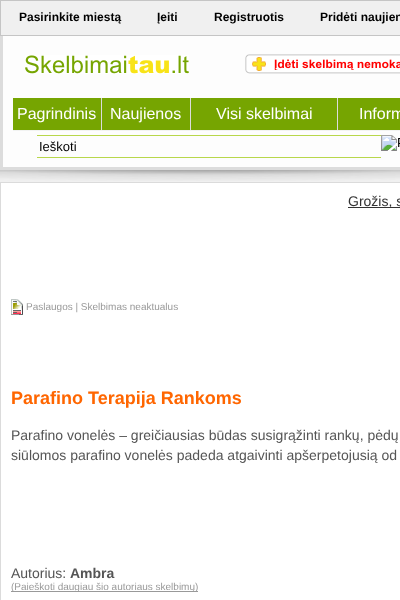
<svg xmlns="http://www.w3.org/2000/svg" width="400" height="600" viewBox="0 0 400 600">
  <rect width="100%" height="100%" fill="rgb(240,240,240)"/>
  <image x="0" y="170" width="400" height="11" href="pic1.png"/>
  <rect x="0.5" y="0.5" width="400" height="35" fill="none" stroke="rgb(197,197,197)"/>
  <g font-family="Liberation Sans" font-size="12" font-weight="bold" fill="rgb(0,0,0)">
    <text x="19" y="21">Pasirinkite miestą</text>
    <text x="157" y="21">Įeiti</text>
    <text x="214" y="21">Registruotis</text>
    <text x="320" y="21">Pridėti naujien</text>
  </g>
  <rect x="3" y="36" width="397" height="131" fill="rgb(253,253,253)"/>
  <rect x="0" y="167" width="400" height="3" fill="rgb(220,220,220)"/>
  <rect x="0" y="36" width="3" height="134" fill="rgb(220,220,220)"/>
  <image x="25" y="55" width="164" height="19" href="pic2.png"/>
  <image x="245" y="54" width="155" height="20" href="pic3.png"/>
  <rect x="13" y="98" width="88" height="32" fill="rgb(118,165,1)"/>
  <rect x="101" y="98" width="1" height="32" fill="rgb(220,220,220)"/>
  <text x="17" y="119" font-family="Liberation Sans" font-size="16" fill="rgb(255,255,255)">Pagrindinis</text>
  <rect x="102" y="98" width="88" height="32" fill="rgb(118,165,1)"/>
  <rect x="190" y="98" width="1" height="32" fill="rgb(220,220,220)"/>
  <text x="110" y="119" font-family="Liberation Sans" font-size="16" fill="rgb(255,255,255)">Naujienos</text>
  <rect x="191" y="98" width="146" height="32" fill="rgb(118,165,1)"/>
  <rect x="337" y="98" width="1" height="32" fill="rgb(220,220,220)"/>
  <text x="216" y="119" font-family="Liberation Sans" font-size="16" fill="rgb(255,255,255)">Visi skelbimai</text>
  <rect x="338" y="98" width="62" height="32" fill="rgb(118,165,1)"/>
  <text x="359" y="119" font-family="Liberation Sans" font-size="16" fill="rgb(255,255,255)">Inform</text>
  <rect x="13" y="130" width="387" height="1" fill="rgb(242,243,242)"/>
  <rect x="37" y="135" width="344" height="1" fill="rgb(184,215,75)"/>
  <rect x="37" y="157" width="344" height="1" fill="rgb(184,215,75)"/>
  <text x="39" y="151" font-family="Liberation Sans" font-size="13" fill="rgb(0,0,0)">Ieškoti</text>
  <image x="381" y="135" width="19" height="16" href="pic4.png"/>
  <rect x="0.5" y="182.5" width="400" height="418" fill="rgb(255,255,255)" stroke="rgb(219,219,219)"/>
  <rect x="348" y="207" width="52" height="1" fill="rgb(51,51,51)"/>
  <text x="348" y="206" font-family="Liberation Sans" font-size="14" fill="rgb(51,51,51)">Grožis, s</text>
  <image x="11" y="299" width="12" height="16" href="pic5.png"/>
  <text x="26" y="310" font-family="Liberation Sans" font-size="10" fill="rgb(153,153,153)">Paslaugos | Skelbimas neaktualus</text>
  <text x="11" y="404" font-family="Liberation Sans" font-size="18" font-weight="bold" fill="rgb(255,102,0)">Parafino Terapija Rankoms</text>
  <g font-family="Liberation Sans" font-size="14" fill="rgb(85,85,85)">
    <text>
      <tspan x="11" y="440">Parafino vonelės – greičiausias būdas susigrąžinti rankų, pėdų</tspan>
      <tspan x="11" y="460">siūlomos parafino vonelės padeda atgaivinti apšerpetojusią od</tspan>
    </text>
    <text x="11" y="578">Autorius:</text>
  </g>
  <text x="70" y="578" font-family="Liberation Sans" font-size="14" font-weight="bold" fill="rgb(85,85,85)">Ambra</text>
  <rect x="11" y="591" width="187" height="1" fill="rgb(153,153,153)"/>
  <text x="11" y="590" font-family="Liberation Sans" font-size="10" fill="rgb(153,153,153)">(Paieškoti daugiau šio autoriaus skelbimų)</text>
</svg>
